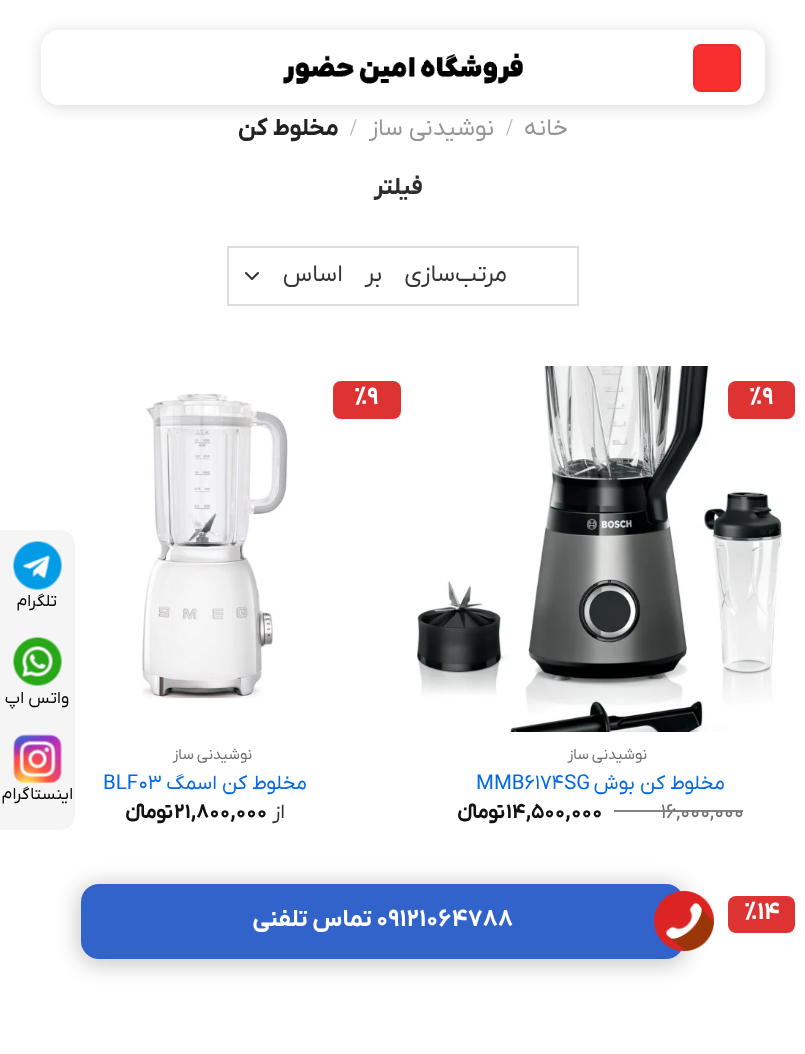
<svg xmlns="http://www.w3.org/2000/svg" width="805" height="1054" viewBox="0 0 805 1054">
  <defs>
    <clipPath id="clip1"><path d="M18 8H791V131H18ZM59 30H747C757 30 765 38 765 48V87C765 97 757 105 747 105H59C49 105 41 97 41 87V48C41 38 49 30 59 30Z" clip-rule="evenodd"/></clipPath>
  </defs>
  <rect width="100%" height="100%" fill="rgb(255,255,255)"/>
  <g clip-path="url(#clip1)">
    <rect x="42" y="32" width="725" height="75" rx="18" fill="rgba(0,0,0,0.15)" filter="blur(7.5px)"/>
  </g>
  <rect x="693" y="44" width="48" height="48" rx="8" fill="rgb(249,46,46)"/>
  <rect x="694" y="45" width="46" height="46" fill="none" stroke="rgba(0,0,0,0.05)" stroke-width="2"/>
  <image x="282" y="53" width="241" height="31" href="pic1.png"/>
  <text x="568" y="135" font-family="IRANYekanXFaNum" font-size="24" direction="rtl" fill="rgb(148,148,148)">خانه</text>
  <text x="506" y="135" font-family="Liberation Serif" font-size="24" fill="rgb(178,178,178)">/</text>
  <text x="494" y="135" font-family="IRANYekanXFaNum" font-size="24" direction="rtl" fill="rgb(148,148,148)">نوشیدنی ساز</text>
  <text x="350" y="135" font-family="Liberation Serif" font-size="24" fill="rgb(178,178,178)">/</text>
  <text x="339" y="135" font-family="IRANYekanXFaNum" font-size="24" font-weight="bold" direction="rtl" fill="rgb(34,34,34)">مخلوط کن</text>
  <text x="423" y="194" font-family="IRANYekanXFaNum" font-size="24" font-weight="bold" letter-spacing="1" direction="rtl" fill="rgb(45,45,45)">فیلتر</text>
  <path d="M246 273L252 279L258 273" fill="none" stroke="rgb(51,51,51)" stroke-width="2" stroke-linecap="round" stroke-linejoin="round"/>
  <rect x="228" y="247" width="350" height="58" fill="none" stroke="rgb(221,221,221)" stroke-width="2"/>
  <text x="507" y="281" word-spacing="16" font-family="IRANYekanXFaNum" font-size="24" direction="rtl" fill="rgb(51,51,51)">مرتب‌سازی بر اساس</text>
  <image x="417" y="366" width="366" height="366" href="pic2.png"/>
  <rect x="728" y="381" width="67" height="38" rx="8" fill="rgb(221,51,51)"/>
  <text x="749" y="404" font-family="IRANYekanXFaNum" font-size="24" font-weight="bold" fill="rgb(255,255,255)">%9</text>
  <text x="647" y="759" word-spacing="-1" font-family="IRANYekanXFaNum" font-size="15.25" letter-spacing="0.75" direction="rtl" fill="rgb(108,108,108)">نوشیدنی ساز</text>
  <text x="725" y="789" font-family="IRANYekanXFaNum" font-size="20.5" direction="rtl" fill="rgb(3,105,231)">مخلوط کن بوش</text>
  <text x="476" y="789" font-family="IRANYekanXFaNum" font-size="20.5" fill="rgb(3,105,231)">MMB6174SG</text>
  <text x="661" y="818" font-family="IRANYekanXFaNum" font-size="20.5" fill="rgb(108,108,108)">16,000,000</text>
  <rect x="614" y="810" width="129" height="2" fill="rgb(129,129,129)"/>
  <text x="506" y="818" font-family="IRANYekanXFaNum" font-size="20.5" font-weight="bold" fill="rgb(17,17,17)">14,500,000</text>
  <text x="505" y="818" font-family="IRANYekanXFaNum" font-size="20.5" font-weight="bold" direction="rtl" fill="rgb(17,17,17)">تومانء</text>
  <rect x="333" y="381" width="68" height="38" rx="8" fill="rgb(221,51,51)"/>
  <text x="354" y="404" font-family="IRANYekanXFaNum" font-size="24" font-weight="bold" fill="rgb(255,255,255)">%9</text>
  <image x="142" y="393" width="146" height="306" href="pic3.png"/>
  <text x="252" y="759" word-spacing="-1" font-family="IRANYekanXFaNum" font-size="15.25" letter-spacing="0.75" direction="rtl" fill="rgb(108,108,108)">نوشیدنی ساز</text>
  <text x="307" y="789" font-family="IRANYekanXFaNum" font-size="20.5" direction="rtl" fill="rgb(3,105,231)">مخلوط کن اسمگ</text>
  <text x="103" y="789" font-family="IRANYekanXFaNum" font-size="20.5" fill="rgb(3,105,231)">BLF03</text>
  <text x="285" y="818" font-family="IRANYekanXFaNum" font-size="20.5" direction="rtl" fill="rgb(45,45,45)">از</text>
  <text x="174" y="818" font-family="IRANYekanXFaNum" font-size="20.5" font-weight="bold" fill="rgb(17,17,17)">21,800,000</text>
  <text x="173" y="818" font-family="IRANYekanXFaNum" font-size="20.5" font-weight="bold" direction="rtl" fill="rgb(17,17,17)">تومانء</text>
  <rect x="728" y="896" width="67" height="37" rx="8" fill="rgb(221,51,51)"/>
  <text x="744" y="919" font-family="IRANYekanXFaNum" font-size="24" font-weight="bold" fill="rgb(255,255,255)">%14</text>
  <path d="M0 530H60C68.5 530 75 536.5 75 545V815C75 823.5 68.5 830 60 830H0Z" fill="rgb(245,245,245)"/>
  <image x="13" y="541" width="49" height="49" href="pic4.png"/>
  <text x="57" y="606" font-family="IRANYekanXFaNum" font-size="17" direction="rtl" fill="rgb(0,0,0)">تلگرام</text>
  <image x="13" y="637" width="49" height="49" href="pic5.png"/>
  <text x="69" y="703" font-family="IRANYekanXFaNum" font-size="17" direction="rtl" fill="rgb(0,0,0)">واتس اپ</text>
  <image x="13" y="734" width="49" height="49" href="pic6.png"/>
  <text x="73" y="799" font-family="IRANYekanXFaNum" font-size="17" direction="rtl" fill="rgb(0,0,0)">اینستاگرام</text>
  <rect x="78" y="884" width="609" height="81" rx="21" fill="rgba(0,0,0,0.21)" filter="blur(10.5px)"/>
  <rect x="81" y="884" width="603" height="75" rx="18" fill="rgb(50,99,203)"/>
  <image x="654" y="891" width="60" height="60" href="pic7.png"/>
  <text x="376" y="926" font-family="IRANYekanXFaNum" font-size="24" font-weight="bold" fill="rgb(255,255,255)">09121064788</text>
  <text x="372" y="926" font-family="IRANYekanXFaNum" font-size="24" font-weight="bold" direction="rtl" fill="rgb(255,255,255)">تماس تلفنی</text>
</svg>
